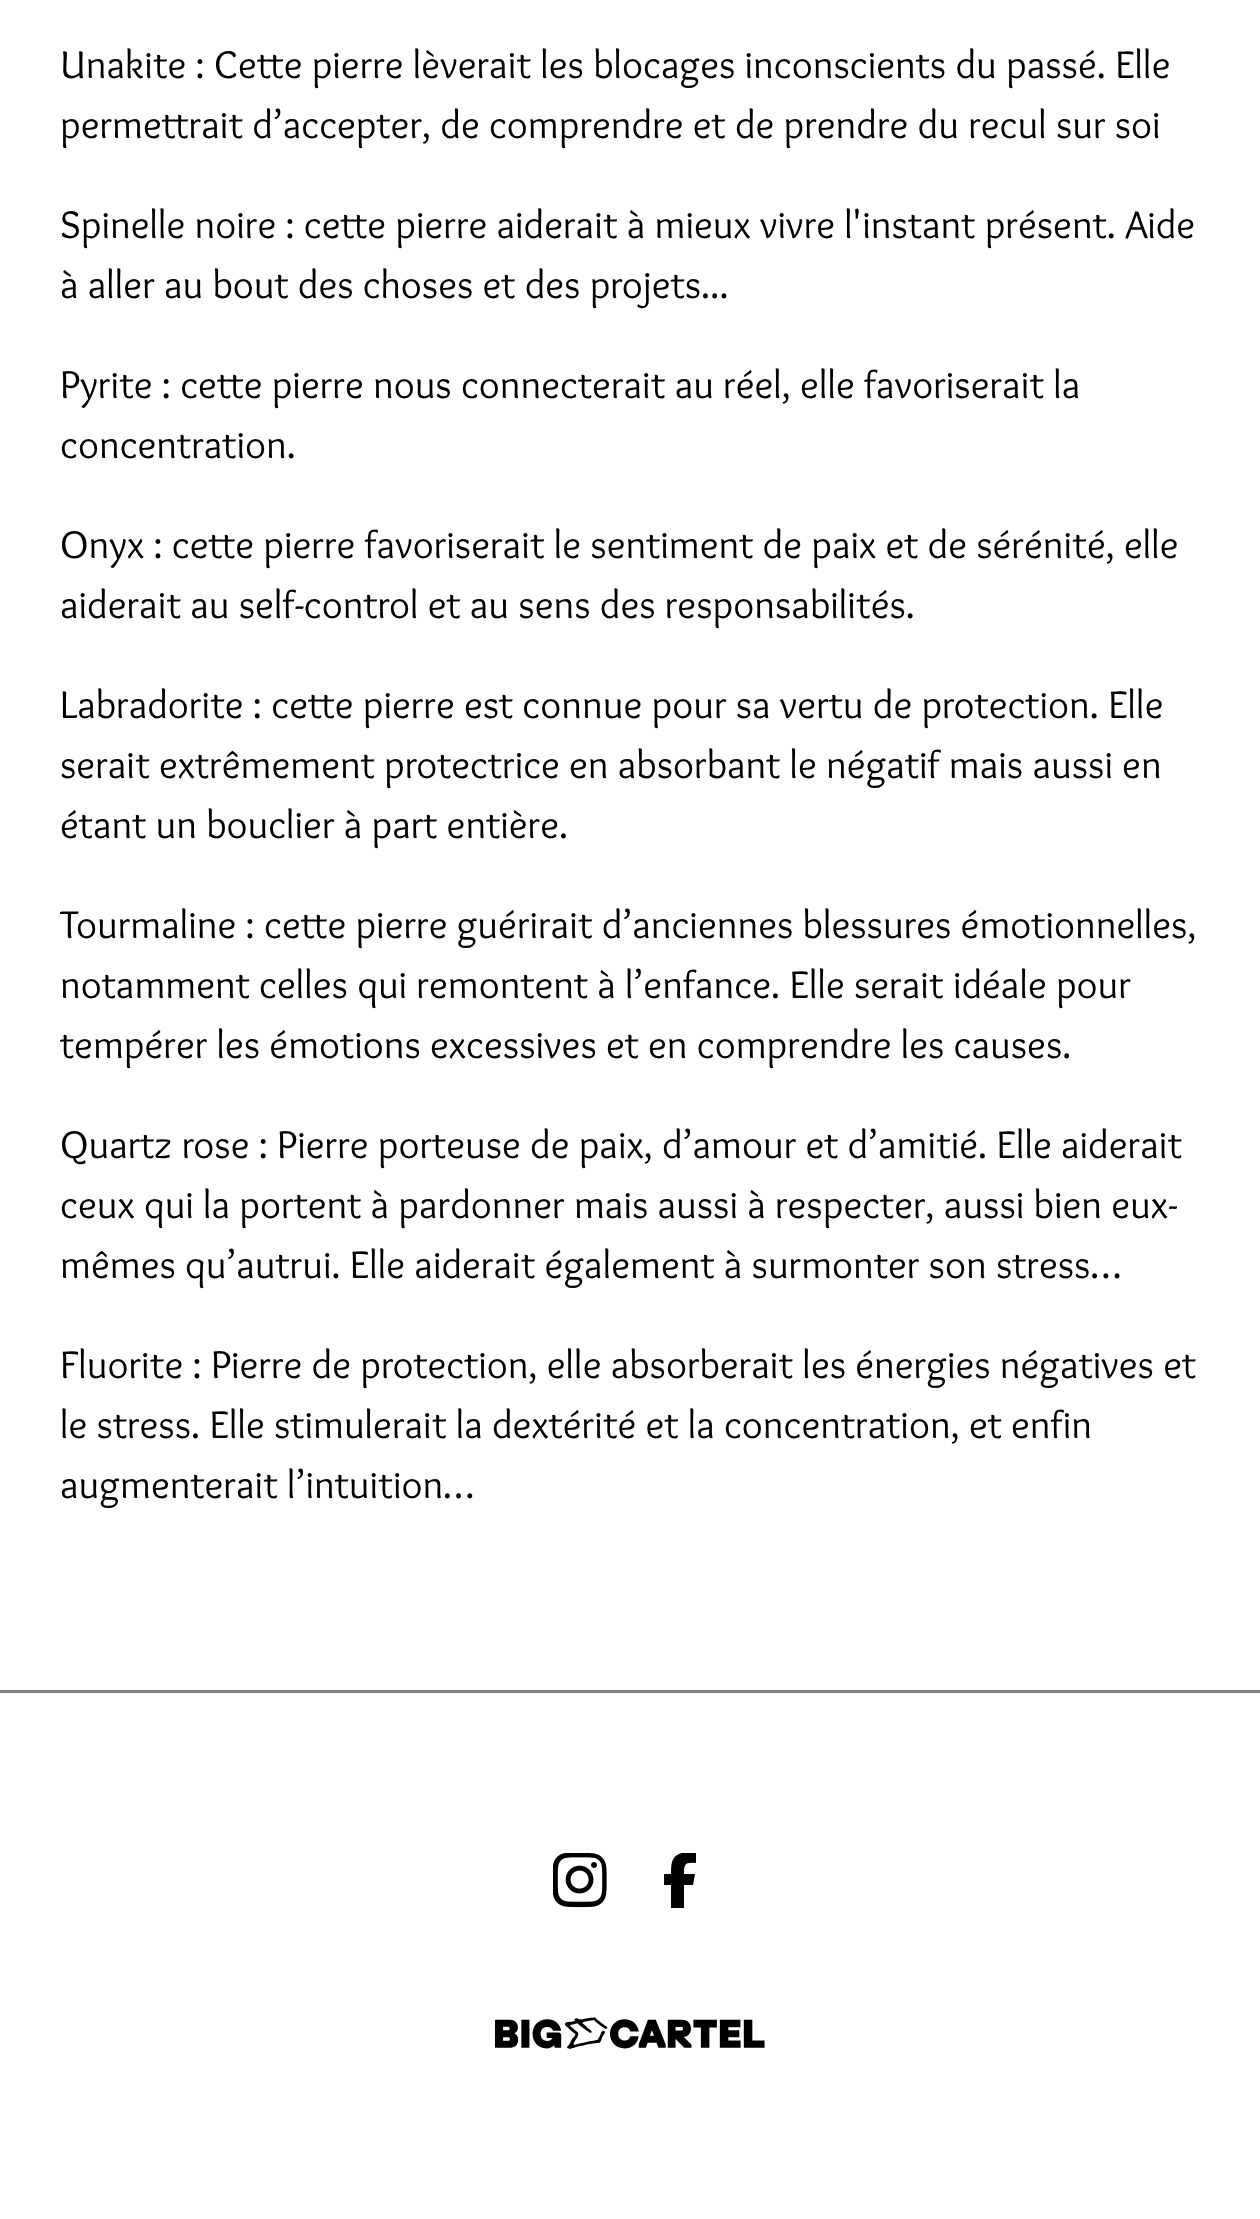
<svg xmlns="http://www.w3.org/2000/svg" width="1260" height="2219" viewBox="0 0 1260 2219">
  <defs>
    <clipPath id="clip1"><rect x="653" y="1853" width="55" height="55"/></clipPath>
  </defs>
  <rect width="100%" height="100%" fill="rgb(255,255,255)"/>
  <g font-family="Overlock" font-size="40" fill="rgb(0,0,0)">
    <text>
      <tspan x="60" y="78">Unakite : Cette pierre lèverait les blocages inconscients du passé. Elle</tspan>
      <tspan x="60" y="138">permettrait d’accepter, de comprendre et de prendre du recul sur soi</tspan>
    </text>
    <text>
      <tspan x="60" y="238">Spinelle noire : cette pierre aiderait à mieux vivre l'instant présent. Aide</tspan>
      <tspan x="60" y="298">à aller au bout des choses et des projets...</tspan>
    </text>
    <text>
      <tspan x="60" y="398">Pyrite : cette pierre nous connecterait au réel, elle favoriserait la</tspan>
      <tspan x="60" y="458">concentration.</tspan>
    </text>
    <text>
      <tspan x="60" y="558">Onyx : cette pierre favoriserait le sentiment de paix et de sérénité, elle</tspan>
      <tspan x="60" y="618">aiderait au self-control et au sens des responsabilités.</tspan>
    </text>
    <text>
      <tspan x="60" y="718">Labradorite : cette pierre est connue pour sa vertu de protection. Elle</tspan>
      <tspan x="60" y="778">serait extrêmement protectrice en absorbant le négatif mais aussi en</tspan>
      <tspan x="60" y="838">étant un bouclier à part entière.</tspan>
    </text>
    <text>
      <tspan x="60" y="938">Tourmaline : cette pierre guérirait d’anciennes blessures émotionnelles,</tspan>
      <tspan x="60" y="998">notamment celles qui remontent à l’enfance. Elle serait idéale pour</tspan>
      <tspan x="60" y="1058">tempérer les émotions excessives et en comprendre les causes.</tspan>
    </text>
    <text>
      <tspan x="60" y="1158">Quartz rose : Pierre porteuse de paix, d’amour et d’amitié. Elle aiderait</tspan>
      <tspan x="60" y="1218">ceux qui la portent à pardonner mais aussi à respecter, aussi bien eux-</tspan>
      <tspan x="60" y="1278">mêmes qu’autrui. Elle aiderait également à surmonter son stress…</tspan>
    </text>
    <text>
      <tspan x="60" y="1378">Fluorite : Pierre de protection, elle absorberait les énergies négatives et</tspan>
      <tspan x="60" y="1438">le stress. Elle stimulerait la dextérité et la concentration, et enfin</tspan>
      <tspan x="60" y="1498">augmenterait l’intuition…</tspan>
    </text>
  </g>
  <rect x="0" y="1690" width="1260" height="3" fill="rgb(128,128,128)"/>
  <image x="553" y="1853" width="54" height="55" href="pic1.png"/>
  <g clip-path="url(#clip1)">
    <path d="M671 1885V1908H684V1885H693L695 1874H684C684 1864 685 1862 696 1863V1853C687 1851 675 1852 672 1862C671 1866 671 1870 671 1874H664V1885Z" fill="rgb(0,0,0)"/>
  </g>
  <image x="495" y="2017" width="270" height="32" href="pic2.png"/>
</svg>
